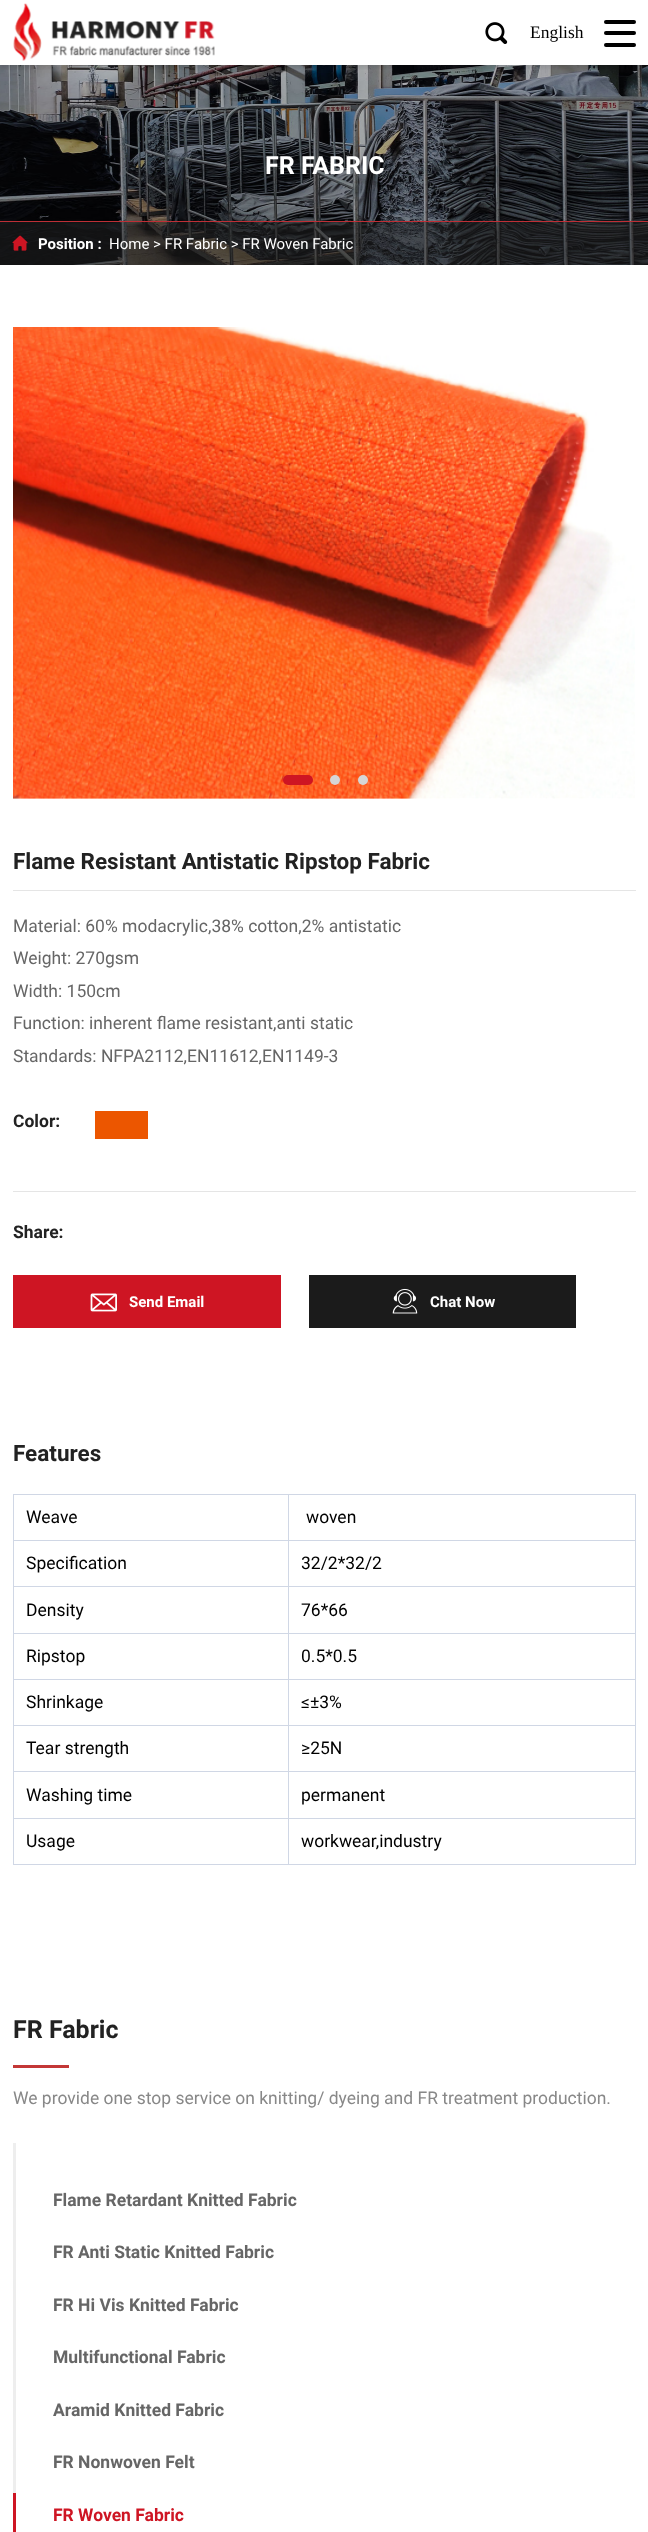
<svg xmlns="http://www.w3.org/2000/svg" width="648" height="2532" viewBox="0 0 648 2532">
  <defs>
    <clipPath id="clip1"><rect x="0" y="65" width="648" height="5"/></clipPath>
  </defs>
  <rect width="100%" height="100%" fill="rgb(255,255,255)"/>
  <image x="0" y="65" width="648" height="200" href="pic3.png"/>
  <g clip-path="url(#clip1)">
    <rect x="0" y="3" width="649" height="65" fill="rgba(0,0,0,0.1)" filter="blur(2px)"/>
  </g>
  <image x="13" y="3" width="202" height="58" href="pic1.png"/>
  <image x="485" y="22" width="23" height="22" href="pic2.png"/>
  <text x="530" y="38" font-family="Liberation Serif" font-size="17.5" fill="rgb(0,0,0)">English</text>
  <rect x="604" y="20" width="32" height="4" rx="2" fill="rgb(0,0,0)"/>
  <rect x="604" y="31" width="32" height="4" rx="2" fill="rgb(0,0,0)"/>
  <rect x="604" y="43" width="32" height="4" rx="2" fill="rgb(0,0,0)"/>
  <text x="265" y="174" font-family="Roboto" font-size="25" font-weight="bold" fill="rgb(255,255,255)">FR FABRIC</text>
  <rect x="0" y="222" width="648" height="43" fill="rgba(34,34,34,0.5)"/>
  <rect x="0" y="221" width="648" height="1" fill="rgb(190,47,54)"/>
  <image x="12" y="235" width="16" height="16" href="pic4.png"/>
  <text x="38" y="249" font-family="Roboto" font-size="15" font-weight="bold" fill="rgb(255,255,255)">Position :</text>
  <text x="109" y="249" font-family="Roboto" font-size="15" fill="rgb(255,255,255)">Home &gt; FR Fabric &gt; FR Woven Fabric</text>
  <image x="13" y="327" width="622" height="472" href="pic5.png"/>
  <rect x="283" y="775" width="30" height="10" rx="5" fill="rgb(206,21,35)"/>
  <circle cx="335" cy="780" r="5" fill="rgb(214,214,214)"/>
  <circle cx="363" cy="780" r="5" fill="rgb(214,214,214)"/>
  <rect x="13" y="890" width="623" height="1" fill="rgb(229,229,229)"/>
  <text x="13" y="869" font-family="Roboto" font-size="22.5" font-weight="bold" fill="rgb(34,34,34)">Flame Resistant Antistatic Ripstop Fabric</text>
  <g font-family="Roboto" font-size="17.5" fill="rgb(102,102,102)">
    <text>
      <tspan x="13" y="932">Material: 60% modacrylic,38% cotton,2% antistatic</tspan>
      <tspan x="13" y="964">Weight: 270gsm</tspan>
      <tspan x="13" y="997">Width: 150cm</tspan>
      <tspan x="13" y="1029">Function: inherent flame resistant,anti static</tspan>
      <tspan x="13" y="1062">Standards: NFPA2112,EN11612,EN1149-3</tspan>
    </text>
  </g>
  <rect x="13" y="1191" width="623" height="1" fill="rgb(229,229,229)"/>
  <text x="13" y="1127" font-family="Roboto" font-size="17.5" font-weight="bold" fill="rgb(34,34,34)">Color:</text>
  <rect x="95" y="1111" width="53" height="28" fill="rgb(236,86,0)"/>
  <text x="13" y="1238" font-family="Roboto" font-size="17.5" font-weight="bold" fill="rgb(34,34,34)">Share:</text>
  <rect x="13" y="1275" width="268" height="53" fill="rgb(206,21,35)"/>
  <image x="90" y="1293" width="27" height="19" href="pic6.png"/>
  <text x="129" y="1307" font-family="Roboto" font-size="15" font-weight="bold" fill="rgb(255,255,255)">Send Email</text>
  <rect x="309" y="1275" width="267" height="53" fill="rgb(27,27,27)"/>
  <image x="392" y="1288" width="26" height="26" href="pic7.png"/>
  <text x="430" y="1307" font-family="Roboto" font-size="15" font-weight="bold" fill="rgb(255,255,255)">Chat Now</text>
  <text x="13" y="1461" font-family="Roboto" font-size="22.5" font-weight="bold" fill="rgb(34,34,34)">Features</text>
  <rect x="288" y="1494" width="348" height="1" fill="rgb(208,215,229)"/>
  <rect x="288" y="1540" width="348" height="1" fill="rgb(208,215,229)"/>
  <rect x="288" y="1586" width="348" height="1" fill="rgb(208,215,229)"/>
  <rect x="288" y="1633" width="348" height="1" fill="rgb(208,215,229)"/>
  <rect x="288" y="1679" width="348" height="1" fill="rgb(208,215,229)"/>
  <rect x="288" y="1725" width="348" height="1" fill="rgb(208,215,229)"/>
  <rect x="288" y="1771" width="348" height="1" fill="rgb(208,215,229)"/>
  <rect x="288" y="1818" width="348" height="1" fill="rgb(208,215,229)"/>
  <rect x="635" y="1818" width="1" height="47" fill="rgb(208,215,229)"/>
  <rect x="288" y="1864" width="348" height="1" fill="rgb(208,215,229)"/>
  <rect x="288" y="1818" width="1" height="47" fill="rgb(208,215,229)"/>
  <rect x="13" y="1818" width="276" height="1" fill="rgb(208,215,229)"/>
  <rect x="288" y="1771" width="1" height="48" fill="rgb(208,215,229)"/>
  <rect x="13" y="1771" width="276" height="1" fill="rgb(208,215,229)"/>
  <rect x="288" y="1725" width="1" height="48" fill="rgb(208,215,229)"/>
  <rect x="13" y="1725" width="276" height="1" fill="rgb(208,215,229)"/>
  <rect x="288" y="1679" width="1" height="47" fill="rgb(208,215,229)"/>
  <rect x="13" y="1679" width="276" height="1" fill="rgb(208,215,229)"/>
  <rect x="288" y="1633" width="1" height="47" fill="rgb(208,215,229)"/>
  <rect x="13" y="1633" width="276" height="1" fill="rgb(208,215,229)"/>
  <rect x="288" y="1586" width="1" height="48" fill="rgb(208,215,229)"/>
  <rect x="13" y="1586" width="276" height="1" fill="rgb(208,215,229)"/>
  <rect x="288" y="1540" width="1" height="48" fill="rgb(208,215,229)"/>
  <rect x="13" y="1540" width="276" height="1" fill="rgb(208,215,229)"/>
  <rect x="288" y="1494" width="1" height="47" fill="rgb(208,215,229)"/>
  <rect x="13" y="1494" width="276" height="1" fill="rgb(208,215,229)"/>
  <rect x="13" y="1864" width="276" height="1" fill="rgb(208,215,229)"/>
  <rect x="13" y="1818" width="1" height="47" fill="rgb(208,215,229)"/>
  <rect x="13" y="1771" width="1" height="48" fill="rgb(208,215,229)"/>
  <rect x="13" y="1725" width="1" height="48" fill="rgb(208,215,229)"/>
  <rect x="13" y="1679" width="1" height="47" fill="rgb(208,215,229)"/>
  <rect x="13" y="1633" width="1" height="47" fill="rgb(208,215,229)"/>
  <rect x="13" y="1586" width="1" height="48" fill="rgb(208,215,229)"/>
  <rect x="13" y="1540" width="1" height="48" fill="rgb(208,215,229)"/>
  <rect x="13" y="1494" width="1" height="47" fill="rgb(208,215,229)"/>
  <text x="26" y="1523" font-family="Roboto" font-size="17.5" fill="rgb(0,0,0)">Weave</text>
  <rect x="635" y="1771" width="1" height="48" fill="rgb(208,215,229)"/>
  <rect x="635" y="1725" width="1" height="48" fill="rgb(208,215,229)"/>
  <rect x="635" y="1679" width="1" height="47" fill="rgb(208,215,229)"/>
  <rect x="635" y="1633" width="1" height="47" fill="rgb(208,215,229)"/>
  <rect x="635" y="1586" width="1" height="48" fill="rgb(208,215,229)"/>
  <rect x="635" y="1540" width="1" height="48" fill="rgb(208,215,229)"/>
  <rect x="635" y="1494" width="1" height="47" fill="rgb(208,215,229)"/>
  <g font-family="Roboto" font-size="17.5" fill="rgb(0,0,0)">
    <text x="306" y="1523">woven</text>
    <text x="26" y="1569">Specification</text>
    <text x="301" y="1569">32/2*32/2</text>
    <text x="26" y="1616">Density</text>
    <text x="301" y="1616">76*66</text>
    <text x="26" y="1662">Ripstop</text>
    <text x="301" y="1662">0.5*0.5</text>
    <text x="26" y="1708">Shrinkage</text>
    <text x="301" y="1708">≤±3%</text>
    <text x="26" y="1754">Tear strength</text>
    <text x="301" y="1754">≥25N</text>
    <text x="26" y="1801">Washing time</text>
    <text x="301" y="1801">permanent</text>
    <text x="26" y="1847">Usage</text>
    <text x="301" y="1847">workwear,industry</text>
  </g>
  <text x="13" y="2038" font-family="Roboto" font-size="25" font-weight="bold" fill="rgb(34,34,34)">FR Fabric</text>
  <rect x="13" y="2065" width="56" height="3" fill="rgb(195,55,54)"/>
  <text x="13" y="2104" font-family="Roboto" font-size="17.5" fill="rgb(136,136,136)">We provide one stop service on knitting/ dyeing and FR treatment production.</text>
  <rect x="13" y="2143" width="3" height="350" fill="rgb(238,238,238)"/>
  <g font-family="Roboto" font-size="17.5" font-weight="bold" fill="rgb(102,102,102)">
    <text x="53" y="2206">Flame Retardant Knitted Fabric</text>
    <text x="53" y="2258">FR Anti Static Knitted Fabric</text>
    <text x="53" y="2311">FR Hi Vis Knitted Fabric</text>
    <text x="53" y="2363">Multifunctional Fabric</text>
    <text x="53" y="2416">Aramid Knitted Fabric</text>
    <text x="53" y="2468">FR Nonwoven Felt</text>
  </g>
  <rect x="13" y="2493" width="3" height="39" fill="rgb(206,21,35)"/>
  <text x="53" y="2521" font-family="Roboto" font-size="17.5" font-weight="bold" fill="rgb(206,21,35)">FR Woven Fabric</text>
</svg>
